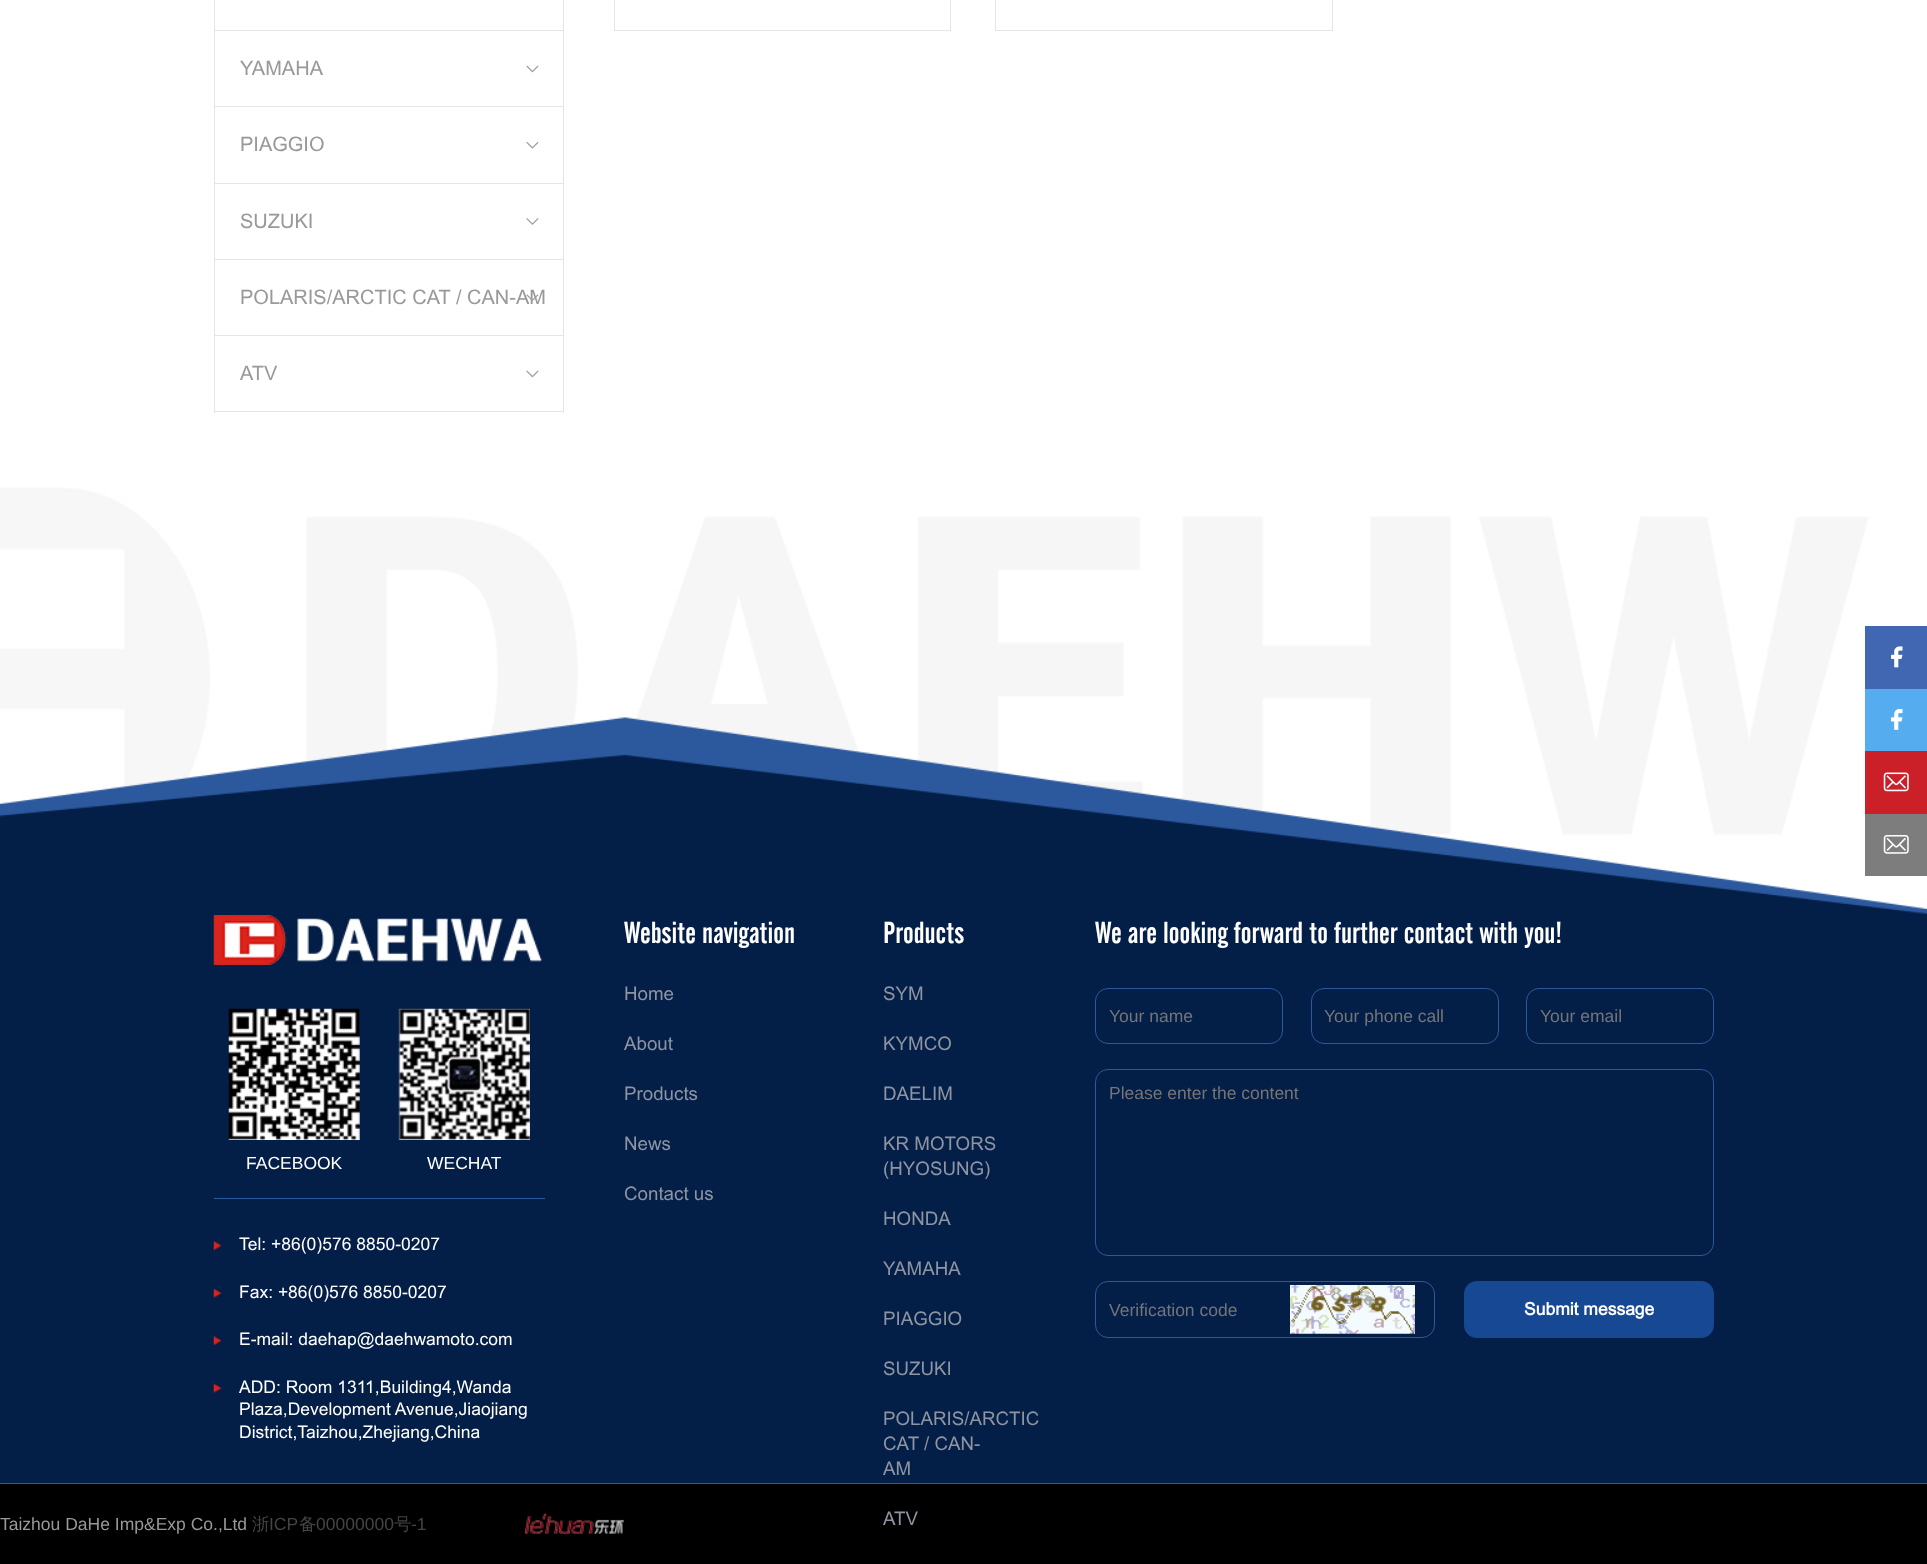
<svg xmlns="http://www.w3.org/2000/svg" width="1927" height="1564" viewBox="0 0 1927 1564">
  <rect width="100%" height="100%" fill="rgb(255,255,255)"/>
  <rect x="614.5" y="-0.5" width="336" height="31" fill="none" stroke="rgb(229,229,229)"/>
  <rect x="995.5" y="-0.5" width="337" height="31" fill="none" stroke="rgb(229,229,229)"/>
  <rect x="563" y="0" width="1" height="413" fill="rgb(229,229,229)"/>
  <rect x="214" y="0" width="1" height="413" fill="rgb(229,229,229)"/>
  <rect x="215" y="30" width="348" height="1" fill="rgb(229,229,229)"/>
  <rect x="215" y="106" width="348" height="1" fill="rgb(229,229,229)"/>
  <text x="240" y="75" font-family="Arial" font-size="20" fill="rgb(153,153,153)">YAMAHA</text>
  <image x="526" y="65" width="13" height="8" href="pic1.png"/>
  <rect x="215" y="183" width="348" height="1" fill="rgb(229,229,229)"/>
  <text x="240" y="151" font-family="Arial" font-size="20" fill="rgb(153,153,153)">PIAGGIO</text>
  <image x="526" y="142" width="13" height="7" href="pic2.png"/>
  <rect x="215" y="259" width="348" height="1" fill="rgb(229,229,229)"/>
  <text x="240" y="228" font-family="Arial" font-size="20" fill="rgb(153,153,153)">SUZUKI</text>
  <image x="526" y="218" width="13" height="7" href="pic3.png"/>
  <rect x="215" y="335" width="348" height="1" fill="rgb(229,229,229)"/>
  <text x="240" y="304" font-family="Arial" font-size="20" fill="rgb(153,153,153)">POLARIS/ARCTIC CAT / CAN-AM</text>
  <image x="526" y="294" width="13" height="7" href="pic4.png"/>
  <rect x="215" y="411" width="348" height="1" fill="rgb(229,229,229)"/>
  <text x="240" y="380" font-family="Arial" font-size="20" fill="rgb(153,153,153)">ATV</text>
  <image x="526" y="370" width="13" height="8" href="pic1.png"/>
  <image x="0" y="487" width="1927" height="381" href="pic5.png"/>
  <rect x="1865" y="626" width="62" height="63" fill="rgb(66,103,178)"/>
  <image x="1891" y="646" width="12" height="22" href="pic6.png"/>
  <image x="0" y="717" width="1927" height="767" href="pic11.png"/>
  <rect x="1865" y="689" width="62" height="62" fill="rgb(85,172,238)"/>
  <image x="1891" y="708" width="12" height="22" href="pic7.png"/>
  <rect x="1865" y="751" width="62" height="63" fill="rgb(203,32,39)"/>
  <image x="1883" y="772" width="26" height="20" href="pic8.png"/>
  <rect x="1865" y="814" width="62" height="62" fill="rgb(125,125,125)"/>
  <image x="1883" y="835" width="26" height="19" href="pic9.png"/>
  <rect x="0" y="1484" width="1927" height="80" fill="rgb(0,0,0)"/>
  <text x="0" y="1530" font-family="Liberation Sans" font-size="17.5" fill="rgb(153,153,153)">Taizhou DaHe Imp&amp;Exp Co.,Ltd</text>
  <text x="252" y="1530" font-family="WenQuanYi Zen Hei" font-size="17.5" font-weight="500" fill="rgb(68,68,68)">浙</text>
  <text x="269" y="1530" font-family="Liberation Sans" font-size="17.5" fill="rgb(68,68,68)">ICP</text>
  <text x="299" y="1530" font-family="WenQuanYi Zen Hei" font-size="17.5" font-weight="500" fill="rgb(68,68,68)">备</text>
  <text x="316" y="1530" font-family="Liberation Sans" font-size="17.5" fill="rgb(68,68,68)">00000000</text>
  <text x="394" y="1530" font-family="WenQuanYi Zen Hei" font-size="17.5" font-weight="500" fill="rgb(68,68,68)">号</text>
  <text x="411" y="1530" font-family="Liberation Sans" font-size="17.5" fill="rgb(68,68,68)">-1</text>
  <image x="525" y="1513" width="99" height="21" href="pic10.png"/>
  <image x="213" y="915" width="329" height="50" href="pic12.png"/>
  <rect x="214" y="1198" width="331" height="1" fill="rgb(44,89,158)"/>
  <image x="228" y="1008" width="132" height="132" href="pic13.png"/>
  <text x="246" y="1169" font-family="Liberation Sans" font-size="17.5" fill="rgb(255,255,255)">FACEBOOK</text>
  <image x="398" y="1008" width="132" height="132" href="pic14.png"/>
  <text x="427" y="1169" font-family="Liberation Sans" font-size="17.5" fill="rgb(255,255,255)">WECHAT</text>
  <image x="213" y="1241" width="9" height="9" href="pic15.png"/>
  <text x="239" y="1250" font-family="Arial" font-size="17.5" fill="rgb(255,255,255)">Tel: +86(0)576 8850-0207</text>
  <image x="213" y="1288" width="9" height="10" href="pic16.png"/>
  <text x="239" y="1298" font-family="Arial" font-size="17.5" fill="rgb(255,255,255)">Fax: +86(0)576 8850-0207</text>
  <image x="213" y="1336" width="9" height="9" href="pic15.png"/>
  <text x="239" y="1345" font-family="Arial" font-size="17.5" fill="rgb(255,255,255)">E-mail: daehap@daehwamoto.com</text>
  <image x="213" y="1383" width="9" height="10" href="pic16.png"/>
  <g font-family="Arial" font-size="17.5" fill="rgb(255,255,255)">
    <text>
      <tspan x="239" y="1393">ADD: Room 1311,Building4,Wanda</tspan>
      <tspan x="239" y="1415">Plaza,Development Avenue,Jiaojiang</tspan>
      <tspan x="239" y="1438">District,Taizhou,Zhejiang,China</tspan>
    </text>
  </g>
  <text x="624" y="943" font-family="'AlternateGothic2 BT'" font-size="30" fill="rgb(255,255,255)">Website navigation</text>
  <g font-family="Arial" font-size="18.75" fill="rgb(142,148,161)">
    <text x="624" y="1000">Home</text>
    <text x="624" y="1050">About</text>
    <text x="624" y="1100">Products</text>
    <text x="624" y="1150">News</text>
    <text x="624" y="1200">Contact us</text>
  </g>
  <text x="883" y="943" font-family="'AlternateGothic2 BT'" font-size="30" fill="rgb(255,255,255)">Products</text>
  <g font-family="Arial" font-size="18.75" fill="rgb(142,148,161)">
    <text x="883" y="1000">SYM</text>
    <text x="883" y="1050">KYMCO</text>
    <text x="883" y="1100">DAELIM</text>
    <text>
      <tspan x="883" y="1150">KR MOTORS</tspan>
      <tspan x="883" y="1175">(HYOSUNG)</tspan>
    </text>
    <text x="883" y="1225">HONDA</text>
    <text x="883" y="1275">YAMAHA</text>
    <text x="883" y="1325">PIAGGIO</text>
    <text x="883" y="1375">SUZUKI</text>
    <text>
      <tspan x="883" y="1425">POLARIS/ARCTIC</tspan>
      <tspan x="883" y="1450">CAT / CAN-</tspan>
      <tspan x="883" y="1475">AM</tspan>
    </text>
    <text x="883" y="1525">ATV</text>
  </g>
  <text x="1095" y="943" font-family="'AlternateGothic2 BT'" font-size="30" fill="rgb(255,255,255)">We are looking forward to further contact with you!</text>
  <rect x="1095.5" y="988.5" width="187" height="55" rx="12.5" fill="none" stroke="rgb(44,89,158)"/>
  <text x="1109" y="1022" font-family="Liberation Sans" font-size="17.5" fill="rgb(117,117,117)">Your name</text>
  <rect x="1311.5" y="988.5" width="187" height="55" rx="12.5" fill="none" stroke="rgb(44,89,158)"/>
  <text x="1324" y="1022" font-family="Liberation Sans" font-size="17.5" fill="rgb(117,117,117)">Your phone call</text>
  <rect x="1526.5" y="988.5" width="187" height="55" rx="12.5" fill="none" stroke="rgb(44,89,158)"/>
  <text x="1540" y="1022" font-family="Liberation Sans" font-size="17.5" fill="rgb(117,117,117)">Your email</text>
  <rect x="1095.5" y="1069.5" width="618" height="186" rx="12.5" fill="none" stroke="rgb(44,89,158)"/>
  <text x="1109" y="1099" font-family="Liberation Sans" font-size="17.5" fill="rgb(117,117,117)">Please enter the content</text>
  <rect x="1095.5" y="1281.5" width="339" height="56" rx="12.5" fill="none" stroke="rgb(44,89,158)"/>
  <text x="1109" y="1316" font-family="Liberation Sans" font-size="17.5" fill="rgb(117,117,117)">Verification code</text>
  <image x="1290" y="1285" width="125" height="49" href="pic17.png"/>
  <rect x="1464" y="1281" width="250" height="57" rx="13" fill="rgb(23,72,148)"/>
  <text x="1524" y="1315" font-family="Arial" font-size="17.5" font-weight="bold" fill="rgb(255,255,255)">Submit message</text>
</svg>
